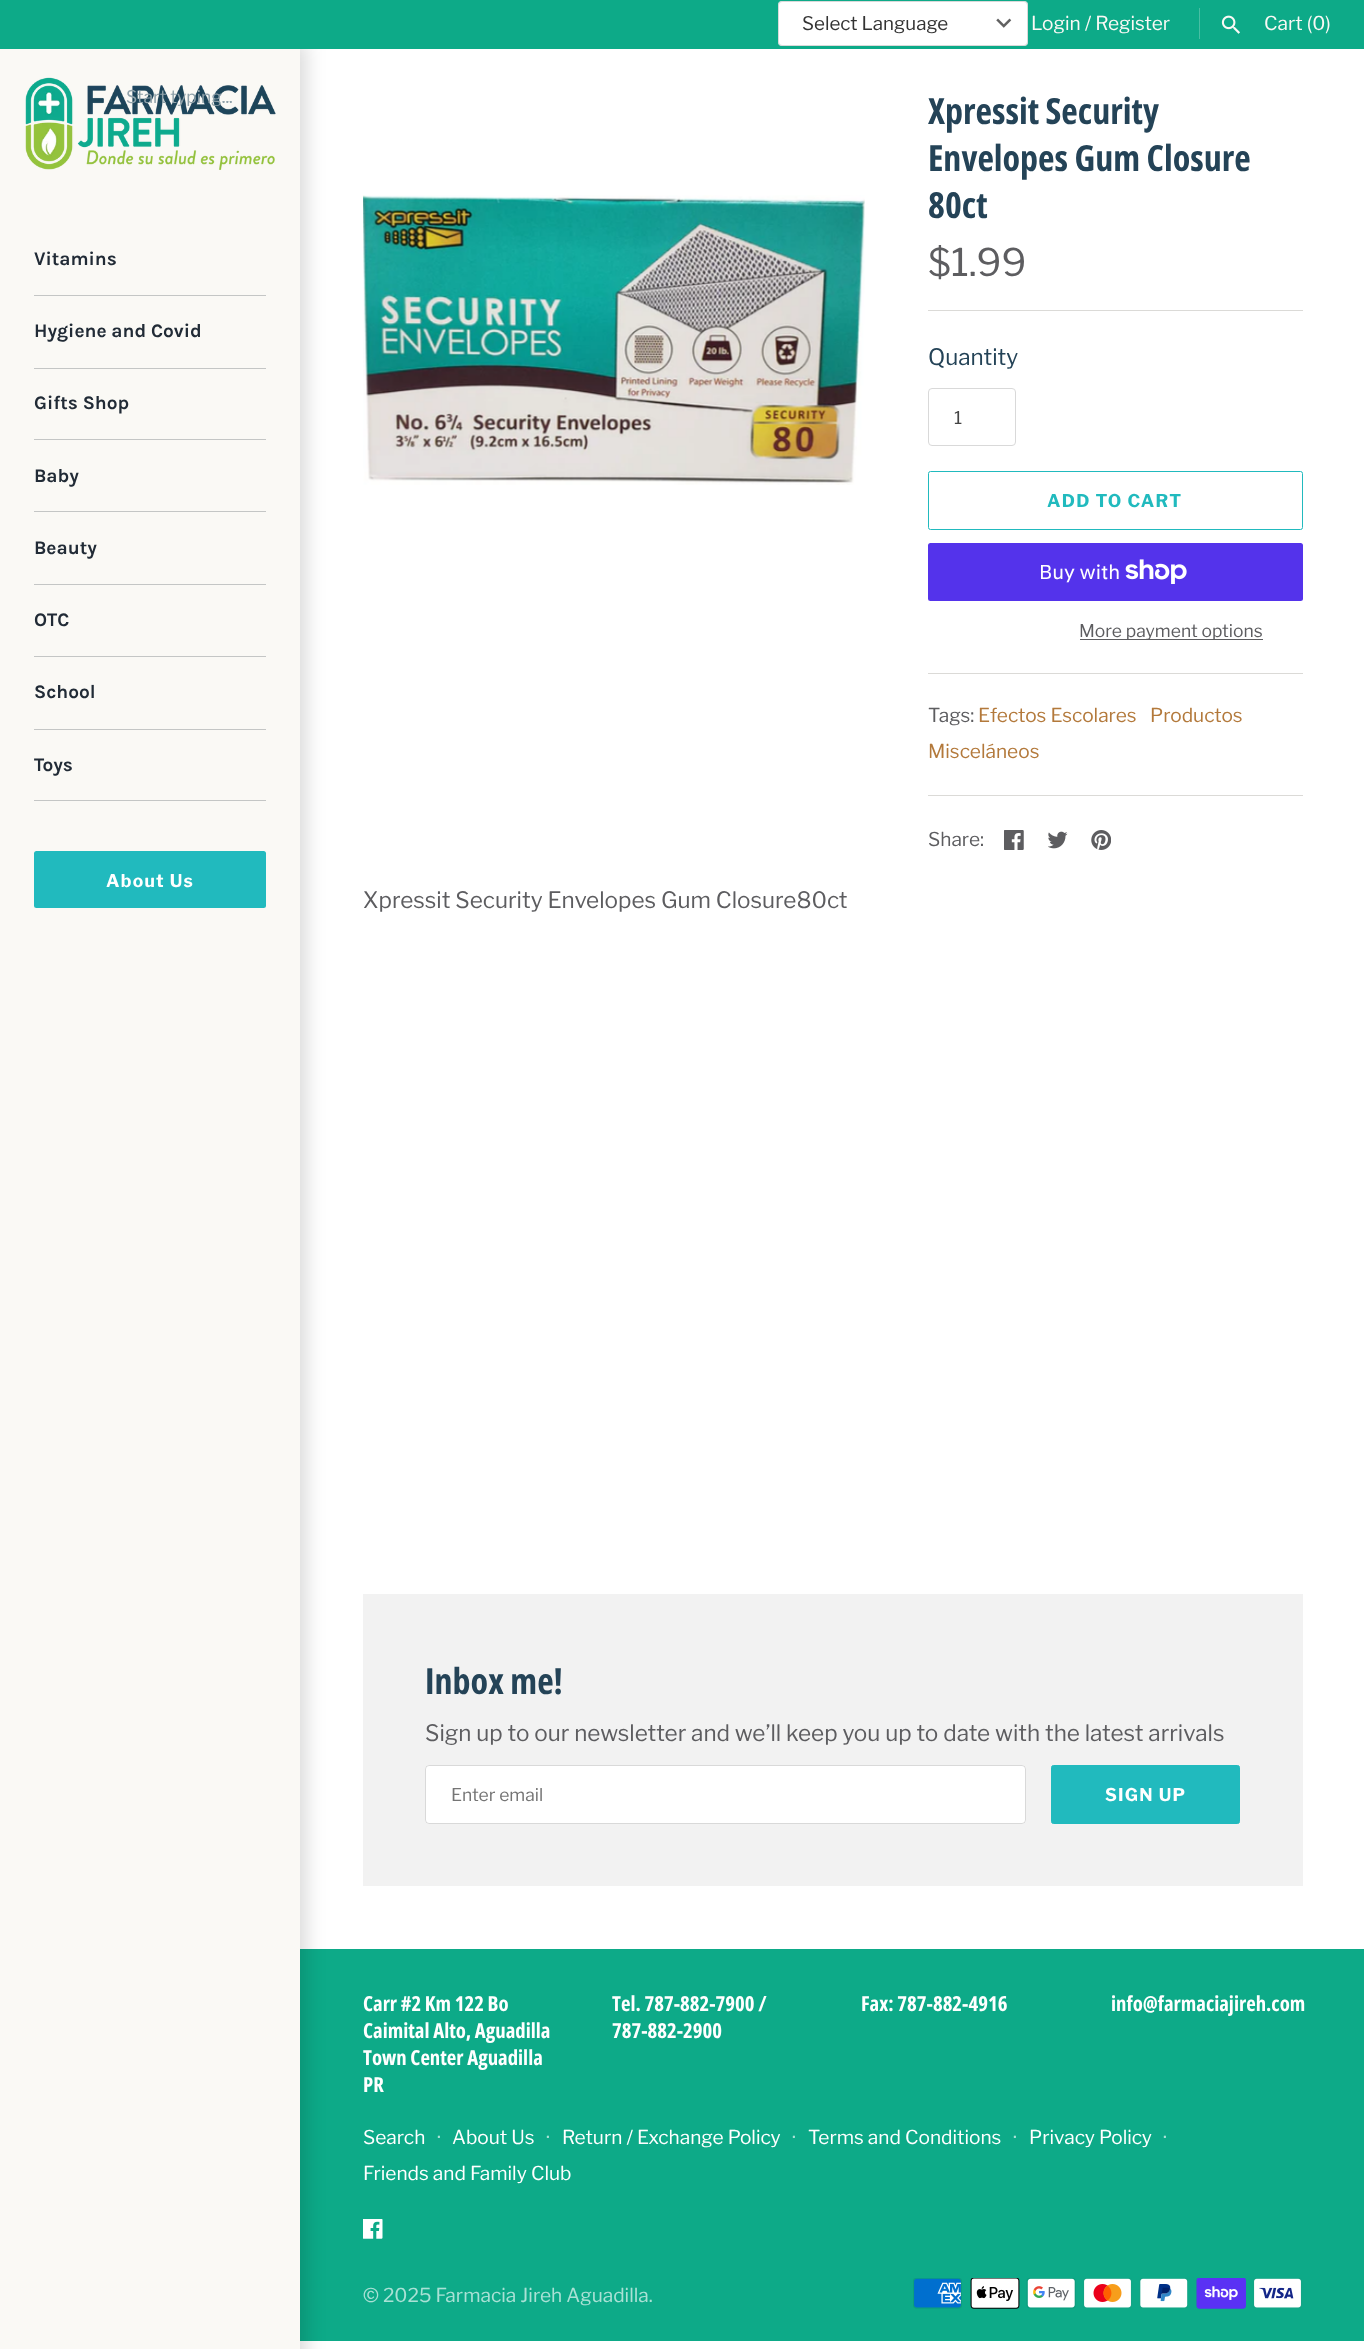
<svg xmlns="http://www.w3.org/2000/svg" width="1364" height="2349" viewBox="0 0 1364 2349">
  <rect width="100%" height="100%" fill="rgb(255,255,255)"/>
  <rect x="300" y="1949" width="1064" height="392" fill="rgb(13,170,136)"/>
  <rect x="-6" y="43" width="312" height="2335" fill="rgba(0,0,0,0.15)" filter="blur(9.5px)"/>
  <rect x="0" y="0" width="1364" height="49" fill="rgb(13,170,136)"/>
  <rect x="778" y="1" width="250" height="45" rx="4" fill="rgb(255,255,255)"/>
  <image x="996" y="18" width="16" height="10" href="pic1.png"/>
  <rect x="778.5" y="1.5" width="249" height="44" rx="3.5" fill="none" stroke="rgba(0,0,0,0.15)"/>
  <text x="802" y="30" font-family="Libre Franklin" font-size="18.75" fill="rgb(51,51,51)">Select Language</text>
  <text x="1031" y="30" font-family="Libre Franklin" font-size="19.1" fill="rgb(250,249,245)">Login / Register</text>
  <rect x="1199" y="8" width="1" height="31" fill="rgb(72,190,163)"/>
  <image x="1221" y="15" width="19" height="19" href="pic2.png"/>
  <text x="1264" y="30" font-family="Libre Franklin" font-size="19.1" fill="rgb(250,249,245)">Cart (0)</text>
  <rect x="0" y="49" width="300" height="2300" fill="rgb(250,249,245)"/>
  <image x="25" y="77" width="251" height="93" href="pic3.png"/>
  <text x="126" y="103" font-family="Libre Franklin" font-size="17.5" fill="rgb(144,162,170)">Start typing...</text>
  <rect x="34" y="295" width="232" height="1" fill="rgb(196,198,197)"/>
  <text x="34" y="265" font-family="Karla" font-size="19.1" font-weight="bold" fill="rgb(33,43,54)">Vitamins</text>
  <rect x="34" y="368" width="232" height="1" fill="rgb(196,198,197)"/>
  <text x="34" y="337" font-family="Karla" font-size="19.1" font-weight="bold" fill="rgb(33,43,54)">Hygiene and Covid</text>
  <rect x="34" y="439" width="232" height="1" fill="rgb(196,198,197)"/>
  <text x="34" y="409" font-family="Karla" font-size="19.1" font-weight="bold" fill="rgb(33,43,54)">Gifts Shop</text>
  <rect x="34" y="511" width="232" height="1" fill="rgb(196,198,197)"/>
  <text x="34" y="482" font-family="Karla" font-size="19.1" font-weight="bold" fill="rgb(33,43,54)">Baby</text>
  <rect x="34" y="584" width="232" height="1" fill="rgb(196,198,197)"/>
  <text x="34" y="554" font-family="Karla" font-size="19.1" font-weight="bold" fill="rgb(33,43,54)">Beauty</text>
  <rect x="34" y="656" width="232" height="1" fill="rgb(196,198,197)"/>
  <text x="34" y="626" font-family="Karla" font-size="19.1" font-weight="bold" fill="rgb(33,43,54)">OTC</text>
  <rect x="34" y="729" width="232" height="1" fill="rgb(196,198,197)"/>
  <text x="34" y="698" font-family="Karla" font-size="19.1" font-weight="bold" fill="rgb(33,43,54)">School</text>
  <rect x="34" y="800" width="232" height="1" fill="rgb(196,198,197)"/>
  <text x="34" y="771" font-family="Karla" font-size="19.1" font-weight="bold" fill="rgb(33,43,54)">Toys</text>
  <rect x="34" y="851" width="232" height="57" rx="2.5" fill="rgb(33,186,190)"/>
  <text x="106" y="887" font-family="Libre Franklin" font-size="17.5" font-weight="bold" letter-spacing="1.25" fill="rgb(255,255,255)">About Us</text>
  <image x="363" y="195" width="502" height="290" href="pic4.png"/>
  <g font-family="Open Sans Condensed" font-size="36" font-weight="bold" fill="rgb(36,67,87)">
    <text>
      <tspan x="928" y="124">Xpressit Security</tspan>
      <tspan x="928" y="171">Envelopes Gum Closure</tspan>
      <tspan x="928" y="218">80ct</tspan>
    </text>
  </g>
  <text x="928" y="276" font-family="Libre Franklin" font-size="38" fill="rgb(93,93,96)">$1.99</text>
  <rect x="928" y="310" width="375" height="1" fill="rgb(219,218,215)"/>
  <text x="928" y="365" font-family="Libre Franklin" font-size="22.5" fill="rgb(36,67,87)">Quantity</text>
  <rect x="928.5" y="388.5" width="87" height="57" rx="3.5" fill="none" stroke="rgb(217,217,217)"/>
  <text x="954" y="424" font-family="Libre Franklin" font-size="17.5" fill="rgb(68,68,68)">1</text>
  <rect x="928.5" y="471.5" width="374" height="58" rx="2" fill="none" stroke="rgb(33,186,190)"/>
  <text x="1047" y="507" font-family="Libre Franklin" font-size="17.5" font-weight="bold" letter-spacing="1.25" fill="rgb(33,186,190)">ADD TO CART</text>
  <rect x="928" y="543" width="375" height="58" rx="2.5" fill="rgb(84,51,235)"/>
  <text x="1039" y="579" font-family="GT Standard" font-size="20" fill="rgb(255,255,255)">Buy with</text>
  <image x="1125" y="559" width="62" height="25" href="pic5.png"/>
  <rect x="1080" y="639" width="183" height="1" fill="rgb(93,93,96)"/>
  <text x="1079" y="637" font-family="Libre Franklin" font-size="17.5" fill="rgb(93,93,96)">More payment options</text>
  <rect x="928" y="673" width="375" height="1" fill="rgb(219,218,215)"/>
  <text x="928" y="722" font-family="Libre Franklin" font-size="19.1" fill="rgb(93,93,96)">Tags:</text>
  <g font-family="Libre Franklin" font-size="19.1" fill="rgb(179,121,59)">
    <text x="978" y="722">Efectos Escolares</text>
    <text x="1150" y="722">Productos</text>
    <text x="928" y="758">Misceláneos</text>
  </g>
  <rect x="928" y="795" width="375" height="1" fill="rgb(219,218,215)"/>
  <text x="928" y="846" font-family="Libre Franklin" font-size="19.1" fill="rgb(93,93,96)">Share:</text>
  <image x="1004" y="830" width="20" height="20" href="pic6.png"/>
  <image x="1048" y="831" width="20" height="18" href="pic7.png"/>
  <image x="1091" y="830" width="20" height="20" href="pic8.png"/>
  <text x="363" y="908" font-family="Libre Franklin" font-size="22.5" fill="rgb(93,93,96)">Xpressit Security Envelopes Gum Closure80ct</text>
  <rect x="363" y="1594" width="940" height="292" fill="rgb(242,242,242)"/>
  <text x="425" y="1694" font-family="Open Sans Condensed" font-size="36" font-weight="bold" fill="rgb(36,67,87)">Inbox me!</text>
  <text x="425" y="1741" font-family="Libre Franklin" font-size="22.5" fill="rgb(93,93,96)">Sign up to our newsletter and we’ll keep you up to date with the latest arrivals</text>
  <rect x="425" y="1765" width="601" height="59" rx="4" fill="rgb(255,255,255)"/>
  <rect x="425.5" y="1765.5" width="600" height="58" rx="3.5" fill="none" stroke="rgba(0,0,0,0.15)"/>
  <text x="451" y="1801" font-family="Libre Franklin" font-size="17.5" fill="rgb(117,117,117)">Enter email</text>
  <rect x="1051.5" y="1765.5" width="188" height="58" rx="2" fill="rgb(33,186,190)" stroke="rgb(33,186,190)"/>
  <text x="1105" y="1801" font-family="Libre Franklin" font-size="17.5" font-weight="bold" letter-spacing="1.25" fill="rgb(255,255,255)">SIGN UP</text>
  <g font-family="Open Sans Condensed" font-size="20.75" font-weight="bold" fill="rgb(255,255,255)">
    <text>
      <tspan x="363" y="2011">Carr #2 Km 122 Bo</tspan>
      <tspan x="363" y="2038">Caimital Alto, Aguadilla</tspan>
      <tspan x="363" y="2065">Town Center Aguadilla</tspan>
      <tspan x="363" y="2092">PR</tspan>
    </text>
    <text>
      <tspan x="612" y="2011">Tel. 787-882-7900 /</tspan>
      <tspan x="612" y="2038">787-882-2900</tspan>
    </text>
    <text x="861" y="2011">Fax: 787-882-4916</text>
    <text x="1111" y="2011">info@farmaciajireh.com</text>
  </g>
  <text x="363" y="2144" font-family="Libre Franklin" font-size="19.1" fill="rgb(255,255,255)">Search</text>
  <text x="437" y="2144" font-family="Libre Franklin" font-size="19.1" fill="rgb(170,225,213)">·</text>
  <text x="452" y="2144" font-family="Libre Franklin" font-size="19.1" fill="rgb(255,255,255)">About Us</text>
  <text x="546" y="2144" font-family="Libre Franklin" font-size="19.1" fill="rgb(170,225,213)">·</text>
  <text x="562" y="2144" font-family="Libre Franklin" font-size="19.1" fill="rgb(255,255,255)">Return / Exchange Policy</text>
  <text x="792" y="2144" font-family="Libre Franklin" font-size="19.1" fill="rgb(170,225,213)">·</text>
  <text x="808" y="2144" font-family="Libre Franklin" font-size="19.1" fill="rgb(255,255,255)">Terms and Conditions</text>
  <text x="1013" y="2144" font-family="Libre Franklin" font-size="19.1" fill="rgb(170,225,213)">·</text>
  <text x="1029" y="2144" font-family="Libre Franklin" font-size="19.1" fill="rgb(255,255,255)">Privacy Policy</text>
  <text x="1163" y="2144" font-family="Libre Franklin" font-size="19.1" fill="rgb(170,225,213)">·</text>
  <text x="363" y="2180" font-family="Libre Franklin" font-size="19.1" fill="rgb(255,255,255)">Friends and Family Club</text>
  <image x="363" y="2219" width="20" height="20" href="pic9.png"/>
  <text x="363" y="2302" font-family="Libre Franklin" font-size="19.1" fill="rgb(170,225,213)">© 2025 Farmacia Jireh Aguadilla.</text>
  <image x="913" y="2278" width="49" height="31" href="pic10.png"/>
  <image x="970" y="2278" width="50" height="31" href="pic11.png"/>
  <image x="1026" y="2278" width="50" height="31" href="pic12.png"/>
  <image x="1083" y="2278" width="49" height="31" href="pic13.png"/>
  <image x="1139" y="2278" width="49" height="31" href="pic14.png"/>
  <image x="1196" y="2278" width="50" height="31" href="pic15.png"/>
  <image x="1253" y="2278" width="49" height="31" href="pic16.png"/>
</svg>
